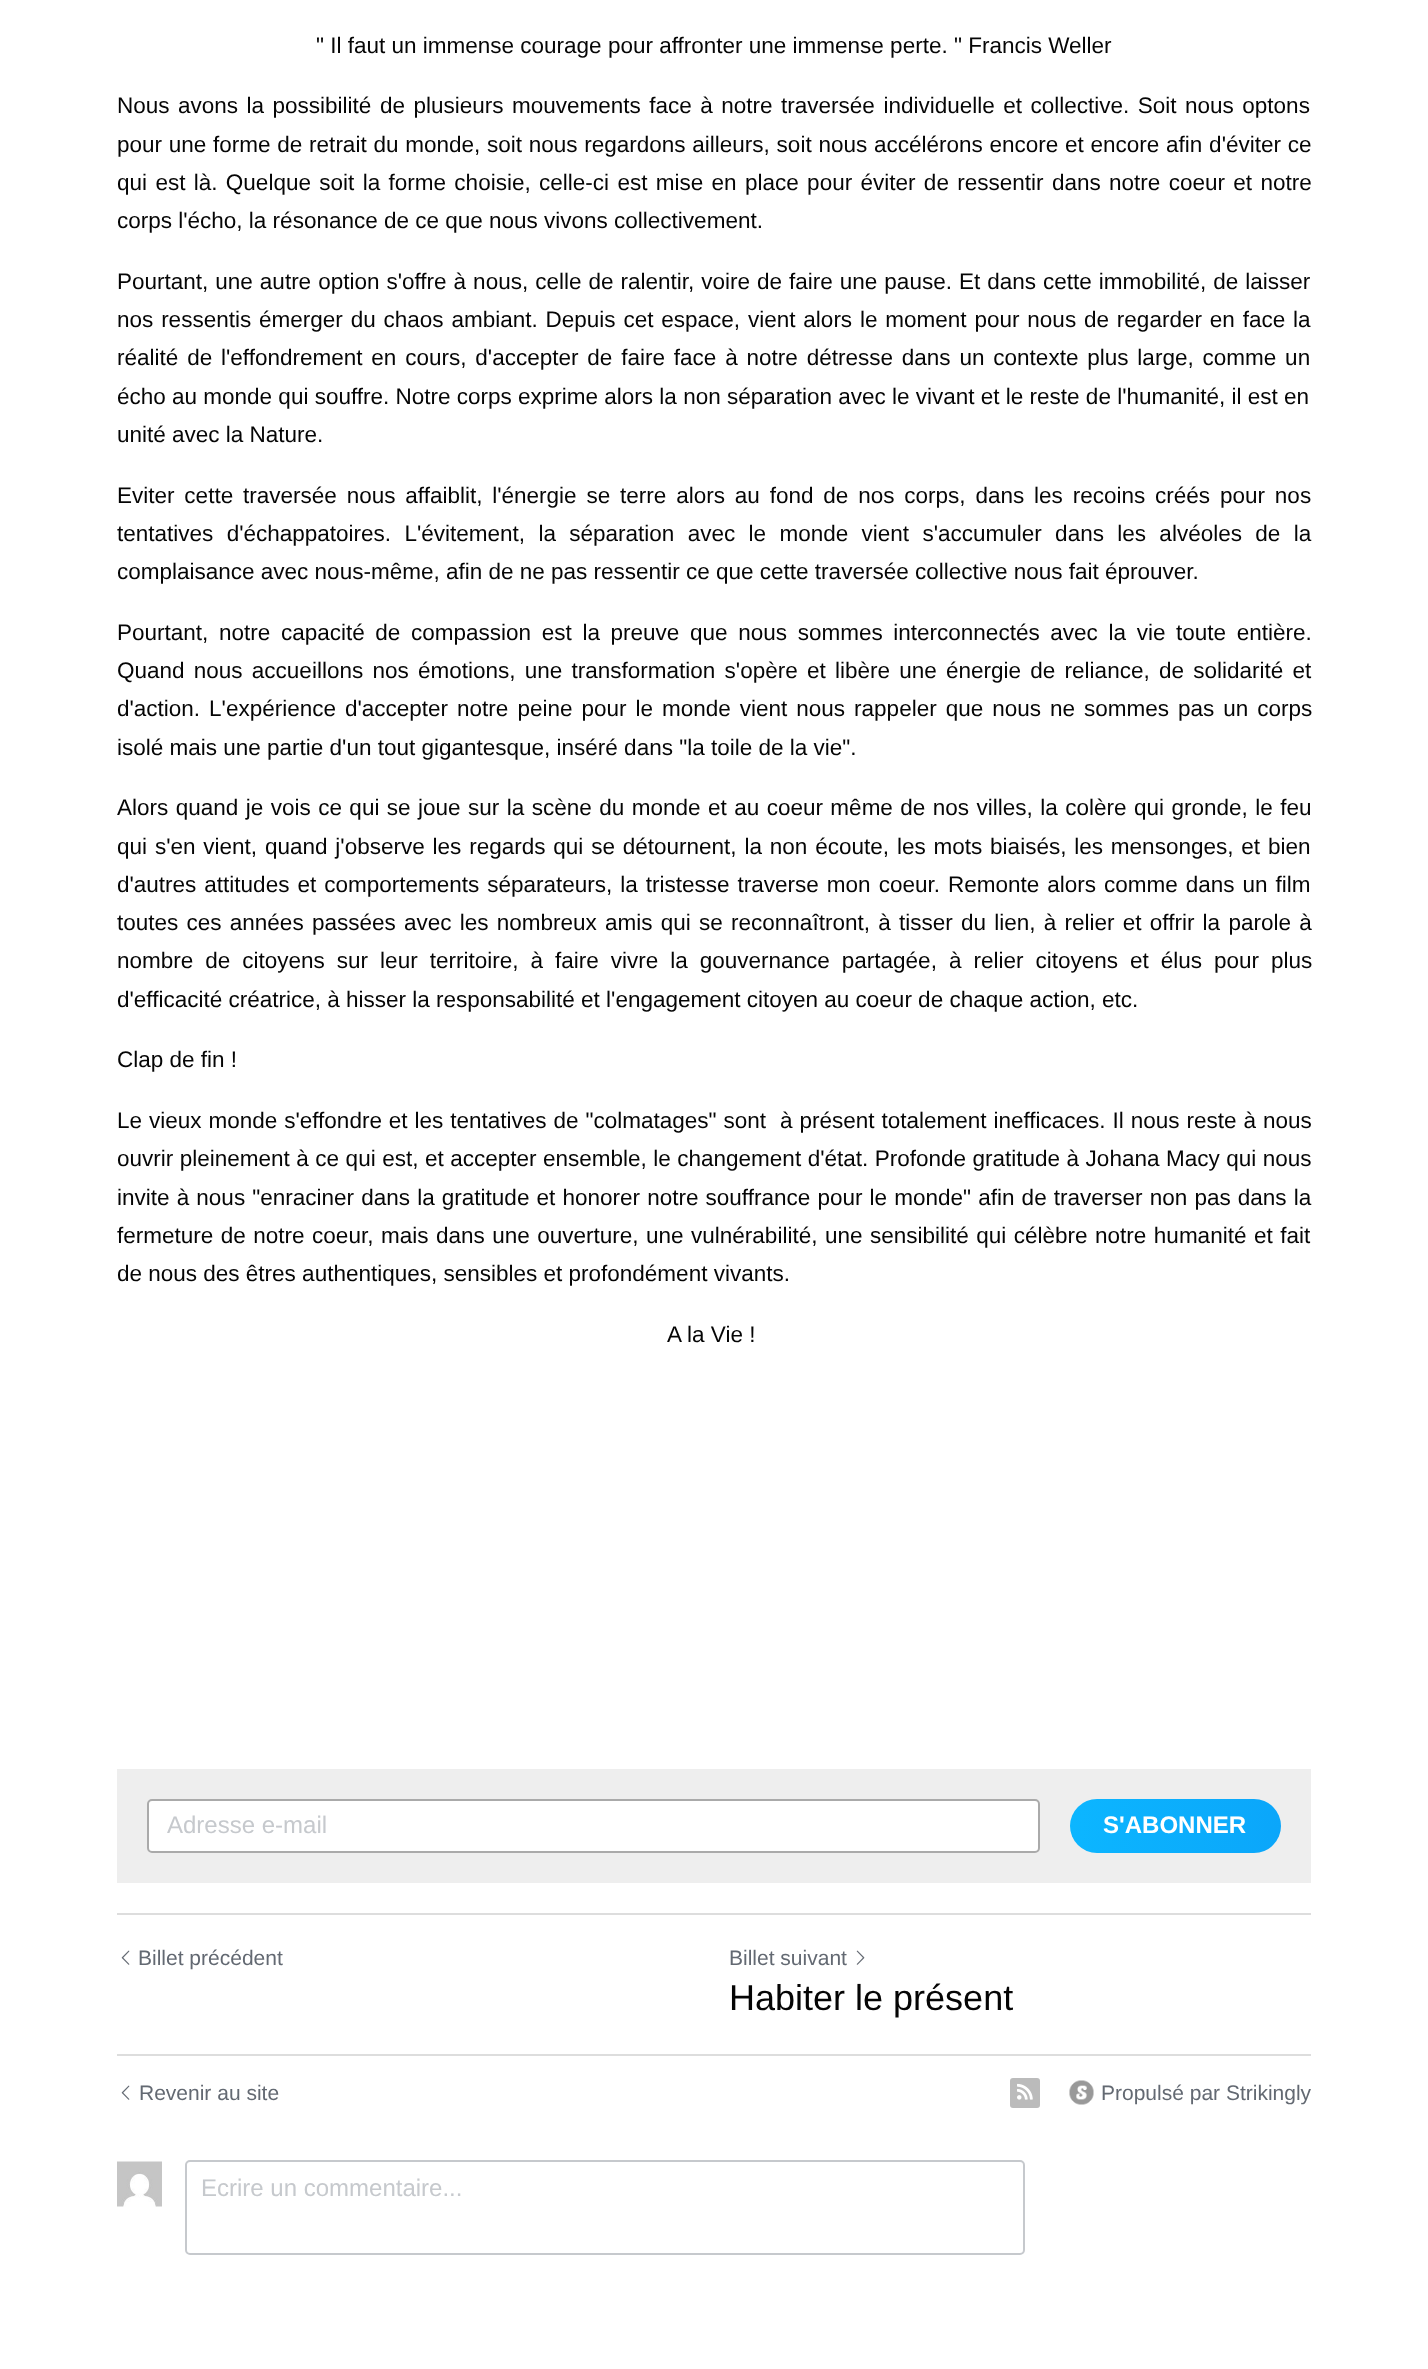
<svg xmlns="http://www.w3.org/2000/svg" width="1428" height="2369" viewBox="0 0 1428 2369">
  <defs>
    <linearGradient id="g1" gradientUnits="userSpaceOnUse" x1="1070" y1="1826" x2="1281" y2="1826"><stop offset="0" stop-color="rgb(12,182,255)"/><stop offset="1" stop-color="rgb(11,166,250)"/></linearGradient>
  </defs>
  <rect width="100%" height="100%" fill="rgb(255,255,255)"/>
  <g font-family="Liberation Sans" font-size="22.5" fill="rgb(5,5,5)">
    <text x="316" y="53">" Il faut un immense courage pour affronter une immense perte. " Francis Weller</text>
    <text>
      <tspan x="117" y="113" word-spacing="2.25">Nous avons la possibilité de plusieurs mouvements face à notre traversée individuelle et collective. Soit nous optons</tspan>
      <tspan x="117" y="152" word-spacing="0.5">pour une forme de retrait du monde, soit nous regardons ailleurs, soit nous accélérons encore et encore afin d'éviter ce</tspan>
      <tspan x="117" y="190" word-spacing="2.1">qui est là. Quelque soit la forme choisie, celle-ci est mise en place pour éviter de ressentir dans notre coeur et notre</tspan>
      <tspan x="117" y="228">corps l'écho, la résonance de ce que nous vivons collectivement.</tspan>
    </text>
    <text>
      <tspan x="117" y="289" word-spacing="0.75">Pourtant, une autre option s'offre à nous, celle de ralentir, voire de faire une pause. Et dans cette immobilité, de laisser</tspan>
      <tspan x="117" y="327" word-spacing="1.6">nos ressentis émerger du chaos ambiant. Depuis cet espace, vient alors le moment pour nous de regarder en face la</tspan>
      <tspan x="117" y="365" word-spacing="2.6">réalité de l'effondrement en cours, d'accepter de faire face à notre détresse dans un contexte plus large, comme un</tspan>
      <tspan x="117" y="404">écho au monde qui souffre. Notre corps exprime alors la non séparation avec le vivant et le reste de l'humanité, il est en</tspan>
      <tspan x="117" y="442">unité avec la Nature.</tspan>
    </text>
    <text>
      <tspan x="117" y="503" word-spacing="3.6">Eviter cette traversée nous affaiblit, l'énergie se terre alors au fond de nos corps, dans les recoins créés pour nos</tspan>
      <tspan x="117" y="541" word-spacing="7.1">tentatives d'échappatoires. L'évitement, la séparation avec le monde vient s'accumuler dans les alvéoles de la</tspan>
      <tspan x="117" y="579">complaisance avec nous-même, afin de ne pas ressentir ce que cette traversée collective nous fait éprouver.</tspan>
    </text>
    <text>
      <tspan x="117" y="640" word-spacing="4.4">Pourtant, notre capacité de compassion est la preuve que nous sommes interconnectés avec la vie toute entière.</tspan>
      <tspan x="117" y="678" word-spacing="3">Quand nous accueillons nos émotions, une transformation s'opère et libère une énergie de reliance, de solidarité et</tspan>
      <tspan x="117" y="716" word-spacing="2.75">d'action. L'expérience d'accepter notre peine pour le monde vient nous rappeler que nous ne sommes pas un corps</tspan>
      <tspan x="117" y="755">isolé mais une partie d'un tout gigantesque, inséré dans "la toile de la vie".</tspan>
    </text>
    <text>
      <tspan x="117" y="815" word-spacing="1.2">Alors quand je vois ce qui se joue sur la scène du monde et au coeur même de nos villes, la colère qui gronde, le feu</tspan>
      <tspan x="117" y="854" word-spacing="1.6">qui s'en vient, quand j'observe les regards qui se détournent, la non écoute, les mots biaisés, les mensonges, et bien</tspan>
      <tspan x="117" y="892" word-spacing="1.75">d'autres attitudes et comportements séparateurs, la tristesse traverse mon coeur. Remonte alors comme dans un film</tspan>
      <tspan x="117" y="930" word-spacing="2">toutes ces années passées avec les nombreux amis qui se reconnaîtront, à tisser du lien, à relier et offrir la parole à</tspan>
      <tspan x="117" y="968" word-spacing="5.75">nombre de citoyens sur leur territoire, à faire vivre la gouvernance partagée, à relier citoyens et élus pour plus</tspan>
      <tspan x="117" y="1007">d'efficacité créatrice, à hisser la responsabilité et l'engagement citoyen au coeur de chaque action, etc.</tspan>
    </text>
    <text x="117" y="1067">Clap de fin !</text>
    <text xml:space="preserve"><tspan x="117" y="1128" word-spacing="0.7">Le vieux monde s'effondre et les tentatives de "colmatages" sont  à présent totalement inefficaces. Il nous reste à nous</tspan><tspan x="117" y="1166" word-spacing="0.25">ouvrir pleinement à ce qui est, et accepter ensemble, le changement d'état. Profonde gratitude à Johana Macy qui nous</tspan><tspan x="117" y="1205" word-spacing="0.9">invite à nous "enraciner dans la gratitude et honorer notre souffrance pour le monde" afin de traverser non pas dans la</tspan><tspan x="117" y="1243" word-spacing="1.25">fermeture de notre coeur, mais dans une ouverture, une vulnérabilité, une sensibilité qui célèbre notre humanité et fait</tspan><tspan x="117" y="1281">de nous des êtres authentiques, sensibles et profondément vivants.</tspan></text>
    <text x="667" y="1342">A la Vie !</text>
  </g>
  <rect x="117" y="1769" width="1194" height="114" fill="rgb(238,238,238)"/>
  <rect x="148" y="1800" width="891" height="52" rx="4" fill="rgb(255,255,255)" stroke="rgb(170,170,170)" stroke-width="2"/>
  <text x="167" y="1833" font-family="Liberation Sans" font-size="24" fill="rgb(198,201,205)">Adresse e-mail</text>
  <rect x="1070" y="1799" width="211" height="54" rx="27" fill="url(#g1)"/>
  <text x="1103" y="1833" font-family="Liberation Sans" font-size="24" font-weight="bold" fill="rgb(255,255,255)">S'ABONNER</text>
  <rect x="117" y="1913" width="1194" height="2" fill="rgb(221,221,221)"/>
  <image x="121" y="1950" width="9" height="15" href="pic1.png"/>
  <g font-family="Liberation Sans" font-size="21" fill="rgb(99,105,114)">
    <text x="138" y="1965">Billet précédent</text>
    <text x="729" y="1965">Billet suivant</text>
  </g>
  <image x="856" y="1950" width="9" height="15" href="pic2.png"/>
  <text x="729" y="2010" font-family="Liberation Sans" font-size="36" fill="rgb(5,5,5)">Habiter le présent</text>
  <rect x="117" y="2054" width="1194" height="2" fill="rgb(221,221,221)"/>
  <image x="121" y="2085" width="9" height="15" href="pic1.png"/>
  <text x="139" y="2100" font-family="Liberation Sans" font-size="21" fill="rgb(99,105,114)">Revenir au site</text>
  <rect x="1010" y="2078" width="30" height="30" rx="3" fill="rgb(187,187,187)"/>
  <image x="1017" y="2083" width="16" height="17" href="pic3.png"/>
  <image x="1069" y="2080" width="25" height="25" href="pic4.png"/>
  <text x="1101" y="2100" font-family="Liberation Sans" font-size="21" fill="rgb(99,105,114)">Propulsé par Strikingly</text>
  <image x="117" y="2161" width="45" height="46" href="pic5.png"/>
  <rect x="186" y="2161" width="838" height="93" rx="4" fill="none" stroke="rgb(198,201,205)" stroke-width="2"/>
  <text x="201" y="2196" font-family="Liberation Sans" font-size="24" fill="rgb(198,201,205)">Ecrire un commentaire...</text>
</svg>
